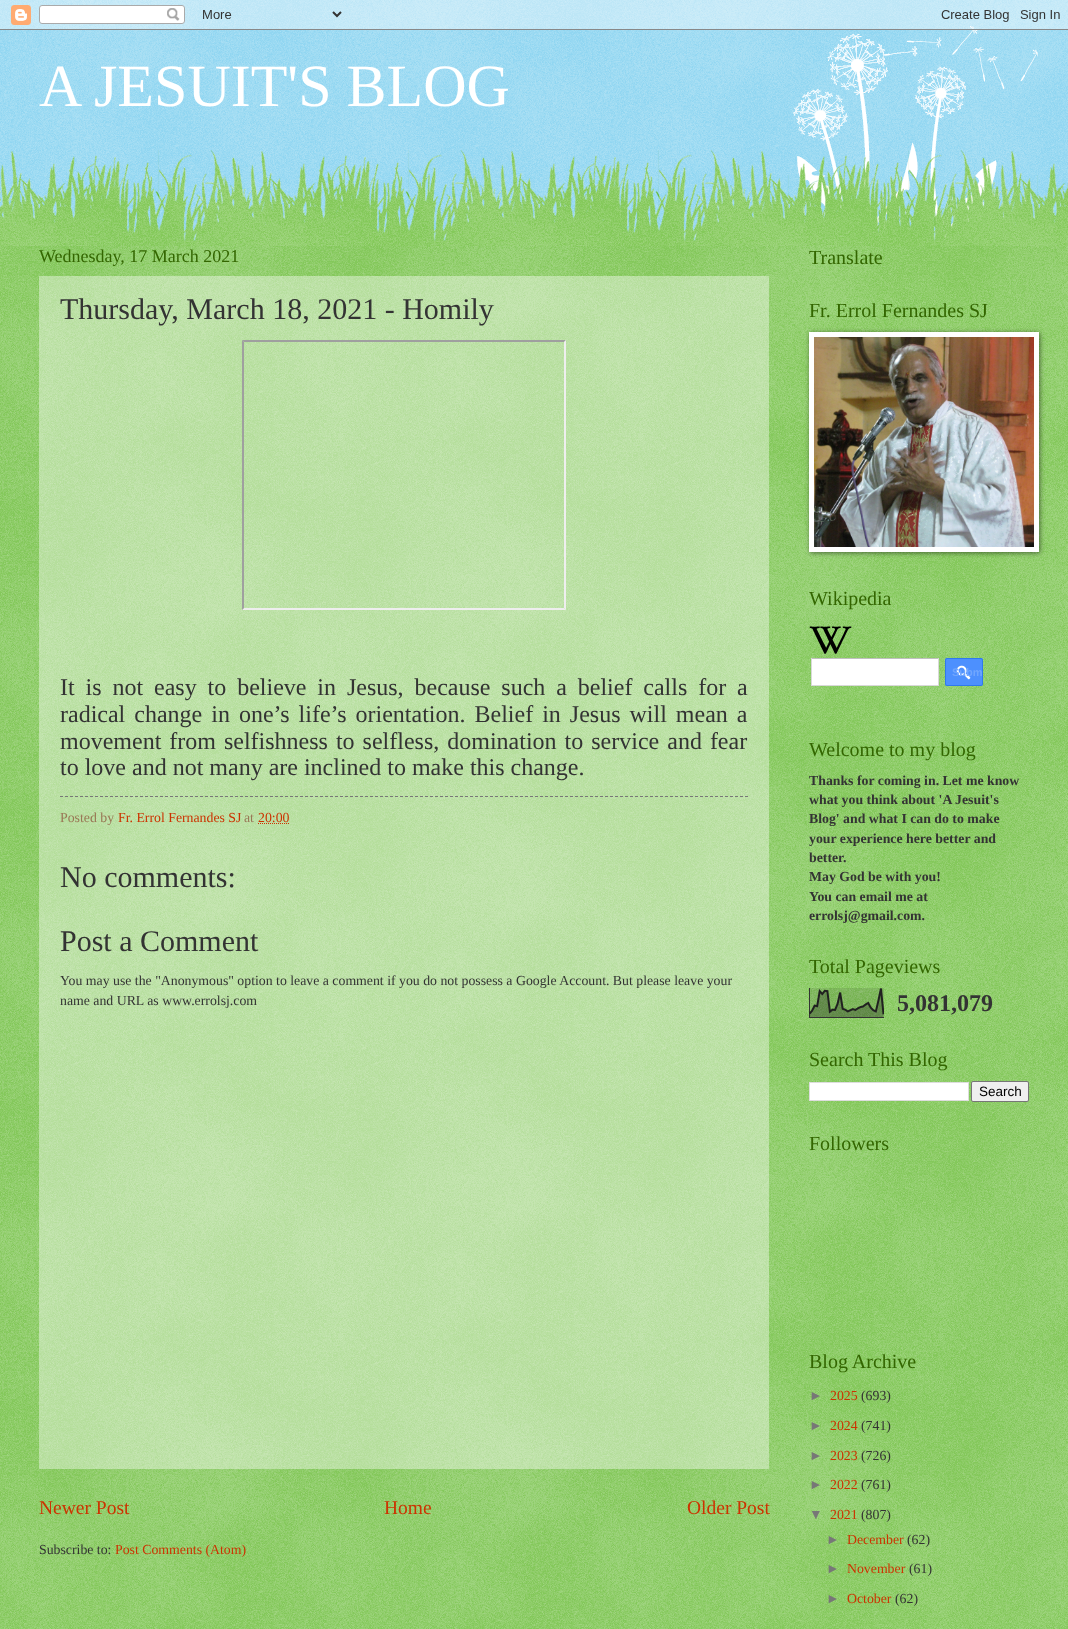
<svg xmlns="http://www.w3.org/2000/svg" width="1068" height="1629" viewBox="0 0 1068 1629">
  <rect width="100%" height="100%" fill="rgb(119,204,238)"/>
  <image x="0" y="0" width="1068" height="241" href="pic1.png"/>
  <image x="788" y="26" width="250" height="215" href="pic4.png"/>
  <image x="0" y="0" width="1068" height="30" href="pic2.png"/>
  <text x="39" y="106" font-family="Liberation Serif" font-size="60" fill="rgb(255,255,255)">A JESUIT'S BLOG</text>
  <rect x="0" y="246" width="1068" height="1383" fill="rgb(102,187,51)"/>
  <image x="0" y="246" width="1068" height="1383" href="pic3.png"/>
  <image x="0" y="150" width="1068" height="96" href="pic5.png"/>
  <text x="39" y="262" font-family="Liberation Serif" font-size="18" fill="rgb(51,102,0)">Wednesday, 17 March 2021</text>
  <rect x="39" y="276" width="730" height="1193" fill="rgba(255,255,255,0.4)"/>
  <text x="60" y="319" font-family="Liberation Serif" font-size="30" fill="rgb(51,51,51)">Thursday, March 18, 2021 - Homily</text>
  <path d="M242 340H566L564 342H244Z" fill="rgb(159,159,159)"/>
  <path d="M566 340V610L564 608V342Z" fill="rgb(238,238,238)"/>
  <path d="M566 610H242L244 608H564Z" fill="rgb(238,238,238)"/>
  <path d="M242 610V340L244 342V608Z" fill="rgb(159,159,159)"/>
  <g font-family="Liberation Serif" font-size="24" fill="rgb(51,51,51)">
    <text>
      <tspan x="60" y="695" word-spacing="4.9">It is not easy to believe in Jesus, because such a belief calls for a</tspan>
      <tspan x="60" y="722" word-spacing="3">radical change in one’s life’s orientation. Belief in Jesus will mean a</tspan>
      <tspan x="60" y="749" word-spacing="2">movement from selfishness to selfless, domination to service and fear</tspan>
      <tspan x="60" y="775">to love and not many are inclined to make this change.</tspan>
    </text>
  </g>
  <path d="M60 796.5H748" fill="none" stroke="rgb(119,119,119)" stroke-dasharray="3 2"/>
  <text x="60" y="822" font-family="Liberation Serif" font-size="13.8" fill="rgb(153,119,85)">Posted by</text>
  <text x="118" y="822" font-family="Liberation Serif" font-size="13.8" fill="rgb(204,51,0)">Fr. Errol Fernandes SJ</text>
  <text x="244" y="822" font-family="Liberation Serif" font-size="13.8" fill="rgb(153,119,85)">at</text>
  <text x="258" y="822" font-family="Liberation Serif" font-size="13.8" fill="rgb(204,51,0)">20:00</text>
  <path d="M258 823.5H289" fill="none" stroke="rgb(204,51,0)" stroke-dasharray="1 1"/>
  <g font-family="Liberation Serif" font-size="30" fill="rgb(51,51,51)">
    <text x="60" y="887">No comments:</text>
    <text x="60" y="951">Post a Comment</text>
  </g>
  <g font-family="Liberation Serif" font-size="13.8" fill="rgb(51,51,51)">
    <text>
      <tspan x="60" y="985">You may use the "Anonymous" option to leave a comment if you do not possess a Google Account. But please leave your</tspan>
      <tspan x="60" y="1005">name and URL as www.errolsj.com</tspan>
    </text>
  </g>
  <g font-family="Liberation Serif" font-size="19.5" fill="rgb(204,51,0)">
    <text x="39" y="1514">Newer Post</text>
    <text x="384" y="1514">Home</text>
    <text x="687" y="1514">Older Post</text>
  </g>
  <text x="39" y="1554" font-family="Liberation Serif" font-size="13.8" fill="rgb(51,51,51)">Subscribe to:</text>
  <text x="115" y="1554" font-family="Liberation Serif" font-size="13.8" fill="rgb(204,51,0)">Post Comments (Atom)</text>
  <g font-family="Liberation Serif" font-size="20" fill="rgb(51,102,0)">
    <text x="809" y="264">Translate</text>
    <text x="809" y="317">Fr. Errol Fernandes SJ</text>
  </g>
  <rect x="810" y="333" width="230" height="220" fill="rgba(0,0,0,0.5)" filter="blur(2.5px)"/>
  <rect x="809" y="332" width="230" height="220" fill="rgb(255,255,255)"/>
  <image x="814" y="337" width="220" height="210" href="pic6.png"/>
  <text x="809" y="605" font-family="Liberation Serif" font-size="20" fill="rgb(51,102,0)">Wikipedia</text>
  <image x="809" y="626" width="43" height="28" href="pic7.png"/>
  <rect x="812" y="659" width="126" height="26" fill="rgb(255,255,255)"/>
  <rect x="811" y="658" width="128" height="1" fill="rgb(192,192,192)"/>
  <rect x="938" y="658" width="1" height="28" fill="rgb(217,217,217)"/>
  <rect x="811" y="685" width="128" height="1" fill="rgb(217,217,217)"/>
  <rect x="811" y="658" width="1" height="28" fill="rgb(217,217,217)"/>
  <rect x="945" y="658" width="38" height="28" rx="2" fill="rgb(77,144,254)"/>
  <image x="956" y="665" width="15" height="15" href="pic8.png"/>
  <rect x="945.5" y="658.5" width="37" height="27" rx="1.5" fill="none" stroke="rgb(48,121,237)"/>
  <text x="952" y="676" font-family="Liberation Sans" font-size="11" font-weight="bold" fill="rgb(112,166,254)">Subm</text>
  <text x="809" y="756" font-family="Liberation Serif" font-size="20" fill="rgb(51,102,0)">Welcome to my blog</text>
  <g font-family="Liberation Serif" font-size="13.8" font-weight="bold" fill="rgb(51,51,51)">
    <text>
      <tspan x="809" y="785">Thanks for coming in. Let me know</tspan>
      <tspan x="809" y="804">what you think about 'A Jesuit's</tspan>
      <tspan x="809" y="823">Blog' and what I can do to make</tspan>
      <tspan x="809" y="843">your experience here better and</tspan>
      <tspan x="809" y="862">better.</tspan>
      <tspan x="809" y="881">May God be with you!</tspan>
      <tspan x="809" y="901">You can email me at</tspan>
      <tspan x="809" y="920">errolsj@gmail.com.</tspan>
    </text>
  </g>
  <text x="809" y="973" font-family="Liberation Serif" font-size="20" fill="rgb(51,102,0)">Total Pageviews</text>
  <image x="809" y="988" width="75" height="30" href="pic9.png"/>
  <text x="897" y="1011" font-family="Liberation Serif" font-size="24" font-weight="bold" fill="rgb(51,51,51)">5,081,079</text>
  <text x="809" y="1066" font-family="Liberation Serif" font-size="20" fill="rgb(51,102,0)">Search This Blog</text>
  <rect x="809.5" y="1082.5" width="159" height="18" fill="rgb(255,255,255)" stroke="rgb(221,221,221)"/>
  <rect x="971.5" y="1081.5" width="57" height="20" rx="1.5" fill="rgb(239,239,239)" stroke="rgb(118,118,118)"/>
  <text x="979" y="1096" font-family="Liberation Sans" font-size="13.5" fill="rgb(0,0,0)">Search</text>
  <g font-family="Liberation Serif" font-size="20" fill="rgb(51,102,0)">
    <text x="809" y="1150">Followers</text>
    <text x="809" y="1368">Blog Archive</text>
  </g>
  <text x="809" y="1400" font-family="Liberation Sans" font-size="13.8" fill="rgb(119,119,119)">►</text>
  <text x="830" y="1400" font-family="Liberation Serif" font-size="13.8" fill="rgb(204,51,0)">2025</text>
  <text x="861" y="1400" font-family="Liberation Serif" font-size="13.8" fill="rgb(51,51,51)">(693)</text>
  <text x="809" y="1430" font-family="Liberation Sans" font-size="13.8" fill="rgb(119,119,119)">►</text>
  <text x="830" y="1430" font-family="Liberation Serif" font-size="13.8" fill="rgb(204,51,0)">2024</text>
  <text x="861" y="1430" font-family="Liberation Serif" font-size="13.8" fill="rgb(51,51,51)">(741)</text>
  <text x="809" y="1460" font-family="Liberation Sans" font-size="13.8" fill="rgb(119,119,119)">►</text>
  <text x="830" y="1460" font-family="Liberation Serif" font-size="13.8" fill="rgb(204,51,0)">2023</text>
  <text x="861" y="1460" font-family="Liberation Serif" font-size="13.8" fill="rgb(51,51,51)">(726)</text>
  <text x="809" y="1489" font-family="Liberation Sans" font-size="13.8" fill="rgb(119,119,119)">►</text>
  <text x="830" y="1489" font-family="Liberation Serif" font-size="13.8" fill="rgb(204,51,0)">2022</text>
  <text x="861" y="1489" font-family="Liberation Serif" font-size="13.8" fill="rgb(51,51,51)">(761)</text>
  <text x="809" y="1519" font-family="Liberation Sans" font-size="13.8" fill="rgb(119,119,119)">▼</text>
  <text x="830" y="1519" font-family="Liberation Serif" font-size="13.8" fill="rgb(204,51,0)">2021</text>
  <text x="861" y="1519" font-family="Liberation Serif" font-size="13.8" fill="rgb(51,51,51)">(807)</text>
  <text x="826" y="1544" font-family="Liberation Sans" font-size="13.8" fill="rgb(119,119,119)">►</text>
  <text x="847" y="1544" font-family="Liberation Serif" font-size="13.8" fill="rgb(204,51,0)">December</text>
  <text x="907" y="1544" font-family="Liberation Serif" font-size="13.8" fill="rgb(51,51,51)">(62)</text>
  <text x="826" y="1573" font-family="Liberation Sans" font-size="13.8" fill="rgb(119,119,119)">►</text>
  <text x="847" y="1573" font-family="Liberation Serif" font-size="13.8" fill="rgb(204,51,0)">November</text>
  <text x="909" y="1573" font-family="Liberation Serif" font-size="13.8" fill="rgb(51,51,51)">(61)</text>
  <text x="826" y="1603" font-family="Liberation Sans" font-size="13.8" fill="rgb(119,119,119)">►</text>
  <text x="847" y="1603" font-family="Liberation Serif" font-size="13.8" fill="rgb(204,51,0)">October</text>
  <text x="895" y="1603" font-family="Liberation Serif" font-size="13.8" fill="rgb(51,51,51)">(62)</text>
</svg>
